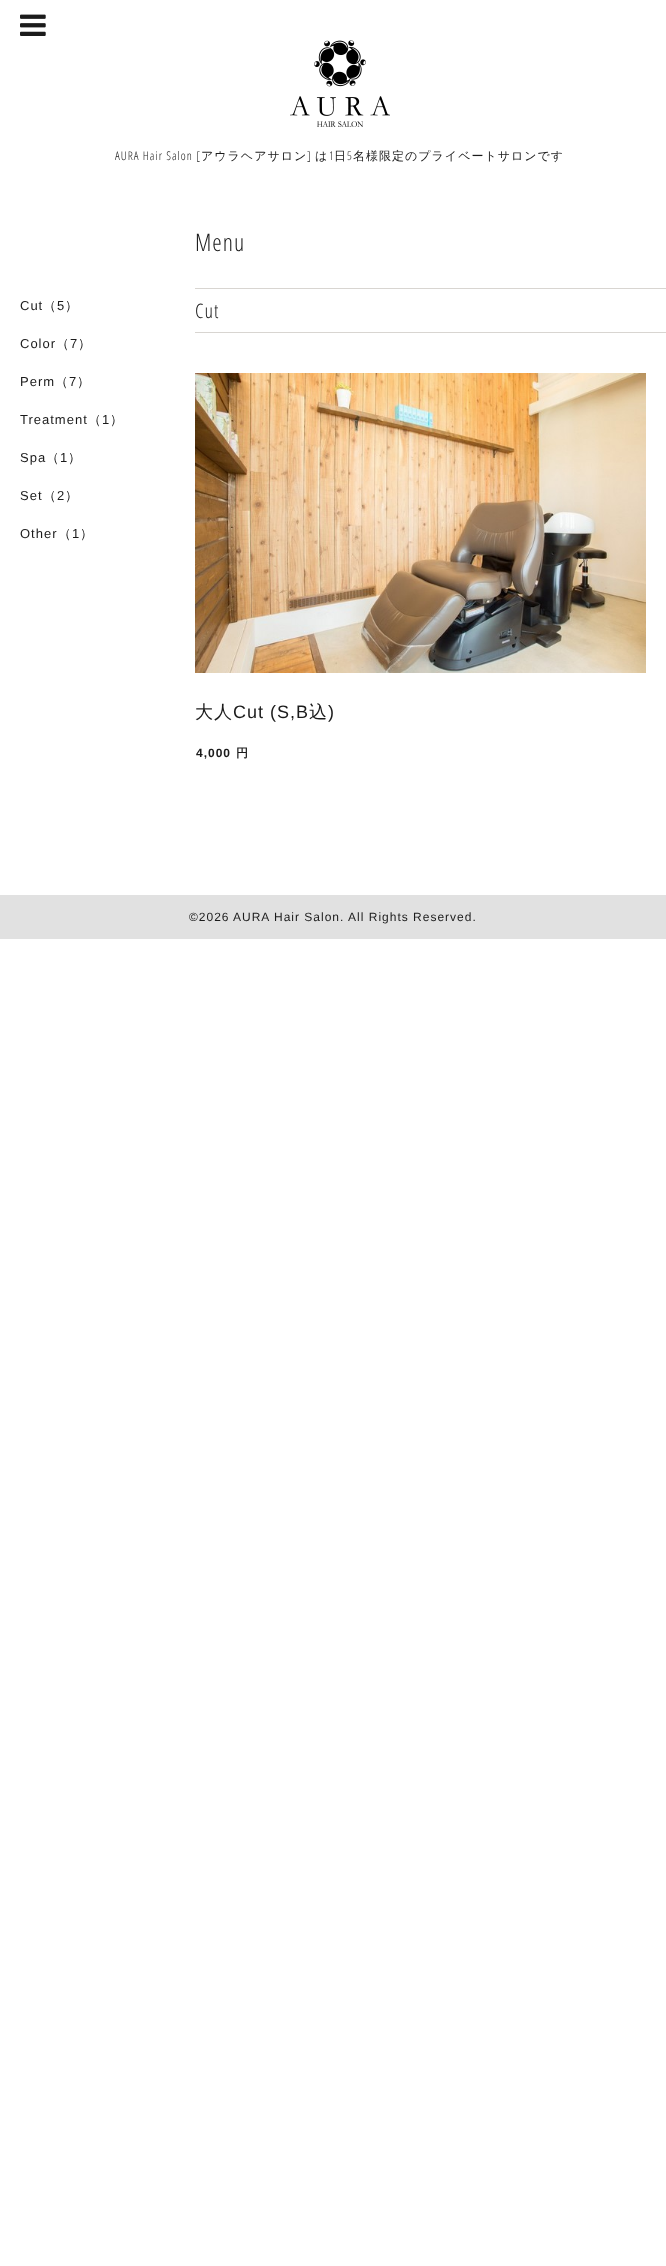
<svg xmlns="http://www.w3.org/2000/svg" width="666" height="2266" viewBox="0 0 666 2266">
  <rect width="100%" height="100%" fill="rgb(255,255,255)"/>
  <image x="20" y="14" width="26" height="22" href="pic1.png"/>
  <image x="290" y="40" width="100" height="87" href="pic2.png"/>
  <text x="115" y="160" font-family="Open Sans Condensed" font-size="12" font-weight="300" letter-spacing="1" fill="rgb(27,27,27)">AURA Hair Salon [</text>
  <text x="201" y="160" font-family="WenQuanYi Zen Hei" font-size="12" font-weight="500" letter-spacing="1" fill="rgb(27,27,27)">アウラヘアサロン</text>
  <text x="307" y="160" font-family="Open Sans Condensed" font-size="12" font-weight="300" letter-spacing="1" fill="rgb(27,27,27)">]</text>
  <text x="315" y="160" font-family="WenQuanYi Zen Hei" font-size="12" font-weight="500" letter-spacing="1" fill="rgb(27,27,27)">は</text>
  <text x="329" y="160" font-family="Open Sans Condensed" font-size="12" font-weight="300" letter-spacing="1" fill="rgb(27,27,27)">1</text>
  <text x="334" y="160" font-family="WenQuanYi Zen Hei" font-size="12" font-weight="500" letter-spacing="1" fill="rgb(27,27,27)">日</text>
  <text x="347" y="160" font-family="Open Sans Condensed" font-size="12" font-weight="300" letter-spacing="1" fill="rgb(27,27,27)">5</text>
  <text x="353" y="160" font-family="WenQuanYi Zen Hei" font-size="12" font-weight="500" letter-spacing="1" fill="rgb(27,27,27)">名様限定のプライベートサロンです</text>
  <text x="20" y="310" font-family="Liberation Sans" font-size="13" letter-spacing="1" fill="rgb(27,27,27)">Cut</text>
  <text x="43" y="310" font-family="WenQuanYi Zen Hei" font-size="13" font-weight="500" letter-spacing="1" fill="rgb(27,27,27)">（</text>
  <text x="57" y="310" font-family="Liberation Sans" font-size="13" letter-spacing="1" fill="rgb(27,27,27)">5</text>
  <text x="65" y="310" font-family="WenQuanYi Zen Hei" font-size="13" font-weight="500" letter-spacing="1" fill="rgb(27,27,27)">）</text>
  <text x="20" y="348" font-family="Liberation Sans" font-size="13" letter-spacing="1" fill="rgb(27,27,27)">Color</text>
  <text x="56" y="348" font-family="WenQuanYi Zen Hei" font-size="13" font-weight="500" letter-spacing="1" fill="rgb(27,27,27)">（</text>
  <text x="70" y="348" font-family="Liberation Sans" font-size="13" letter-spacing="1" fill="rgb(27,27,27)">7</text>
  <text x="78" y="348" font-family="WenQuanYi Zen Hei" font-size="13" font-weight="500" letter-spacing="1" fill="rgb(27,27,27)">）</text>
  <text x="20" y="386" font-family="Liberation Sans" font-size="13" letter-spacing="1" fill="rgb(27,27,27)">Perm</text>
  <text x="55" y="386" font-family="WenQuanYi Zen Hei" font-size="13" font-weight="500" letter-spacing="1" fill="rgb(27,27,27)">（</text>
  <text x="69" y="386" font-family="Liberation Sans" font-size="13" letter-spacing="1" fill="rgb(27,27,27)">7</text>
  <text x="77" y="386" font-family="WenQuanYi Zen Hei" font-size="13" font-weight="500" letter-spacing="1" fill="rgb(27,27,27)">）</text>
  <text x="20" y="424" font-family="Liberation Sans" font-size="13" letter-spacing="1" fill="rgb(27,27,27)">Treatment</text>
  <text x="88" y="424" font-family="WenQuanYi Zen Hei" font-size="13" font-weight="500" letter-spacing="1" fill="rgb(27,27,27)">（</text>
  <text x="102" y="424" font-family="Liberation Sans" font-size="13" letter-spacing="1" fill="rgb(27,27,27)">1</text>
  <text x="110" y="424" font-family="WenQuanYi Zen Hei" font-size="13" font-weight="500" letter-spacing="1" fill="rgb(27,27,27)">）</text>
  <text x="20" y="462" font-family="Liberation Sans" font-size="13" letter-spacing="1" fill="rgb(27,27,27)">Spa</text>
  <text x="46" y="462" font-family="WenQuanYi Zen Hei" font-size="13" font-weight="500" letter-spacing="1" fill="rgb(27,27,27)">（</text>
  <text x="60" y="462" font-family="Liberation Sans" font-size="13" letter-spacing="1" fill="rgb(27,27,27)">1</text>
  <text x="68" y="462" font-family="WenQuanYi Zen Hei" font-size="13" font-weight="500" letter-spacing="1" fill="rgb(27,27,27)">）</text>
  <text x="20" y="500" font-family="Liberation Sans" font-size="13" letter-spacing="1" fill="rgb(27,27,27)">Set</text>
  <text x="43" y="500" font-family="WenQuanYi Zen Hei" font-size="13" font-weight="500" letter-spacing="1" fill="rgb(27,27,27)">（</text>
  <text x="57" y="500" font-family="Liberation Sans" font-size="13" letter-spacing="1" fill="rgb(27,27,27)">2</text>
  <text x="65" y="500" font-family="WenQuanYi Zen Hei" font-size="13" font-weight="500" letter-spacing="1" fill="rgb(27,27,27)">）</text>
  <text x="20" y="538" font-family="Liberation Sans" font-size="13" letter-spacing="1" fill="rgb(27,27,27)">Other</text>
  <text x="58" y="538" font-family="WenQuanYi Zen Hei" font-size="13" font-weight="500" letter-spacing="1" fill="rgb(27,27,27)">（</text>
  <text x="72" y="538" font-family="Liberation Sans" font-size="13" letter-spacing="1" fill="rgb(27,27,27)">1</text>
  <text x="80" y="538" font-family="WenQuanYi Zen Hei" font-size="13" font-weight="500" letter-spacing="1" fill="rgb(27,27,27)">）</text>
  <text x="195" y="251" font-family="Open Sans Condensed" font-size="24" font-weight="300" letter-spacing="1" fill="rgb(27,27,27)">Menu</text>
  <rect x="195" y="288" width="471" height="1" fill="rgb(216,213,209)"/>
  <rect x="195" y="332" width="471" height="1" fill="rgb(216,213,209)"/>
  <text x="195" y="318" font-family="Open Sans Condensed" font-size="20" font-weight="300" letter-spacing="1" fill="rgb(27,27,27)">Cut</text>
  <image x="195" y="373" width="451" height="300" href="pic3.png"/>
  <text x="195" y="718" font-family="WenQuanYi Zen Hei" font-size="18" font-weight="500" letter-spacing="1" fill="rgb(27,27,27)">大人</text>
  <text x="233" y="718" font-family="Liberation Sans" font-size="18" letter-spacing="1" fill="rgb(27,27,27)">Cut (S,B</text>
  <text x="309" y="718" font-family="WenQuanYi Zen Hei" font-size="18" font-weight="500" letter-spacing="1" fill="rgb(27,27,27)">込</text>
  <text x="328" y="718" font-family="Liberation Sans" font-size="18" letter-spacing="1" fill="rgb(27,27,27)">)</text>
  <text x="196" y="757" font-family="Liberation Sans" font-size="12" font-weight="bold" letter-spacing="1" fill="rgb(27,27,27)">4,000</text>
  <text x="236" y="757" font-family="WenQuanYi Zen Hei" font-size="12" font-weight="bold" letter-spacing="1" fill="rgb(27,27,27)">円</text>
  <rect x="0" y="895" width="666" height="44" fill="rgb(225,225,225)"/>
  <g font-family="Liberation Sans" font-size="12" letter-spacing="1" fill="rgb(27,27,27)">
    <text x="189" y="921">©2026</text>
    <text x="233" y="921">AURA Hair Salon. All Rights Reserved.</text>
  </g>
</svg>
